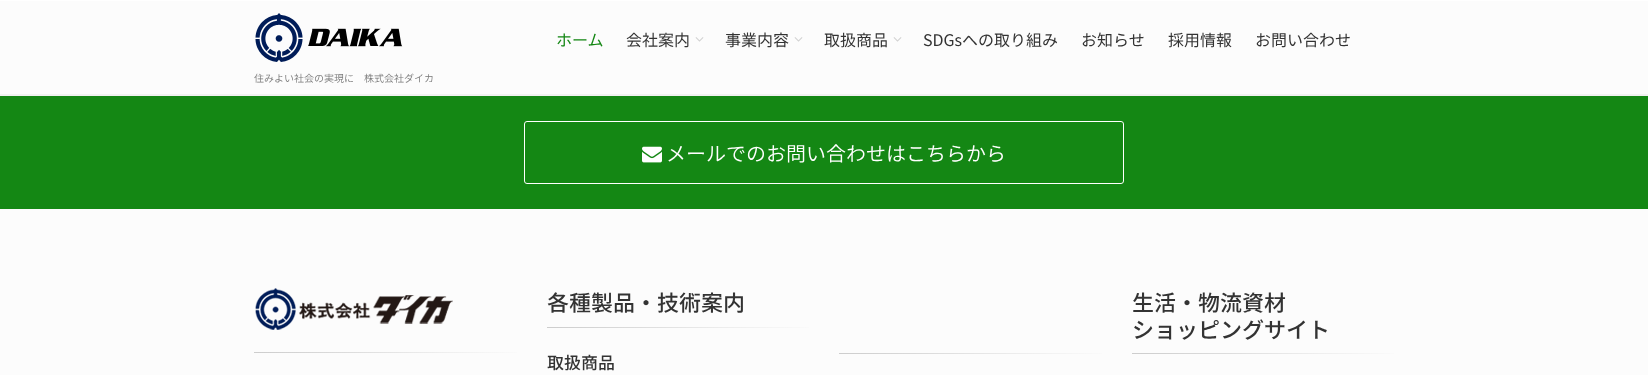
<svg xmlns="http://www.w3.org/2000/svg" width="1648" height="375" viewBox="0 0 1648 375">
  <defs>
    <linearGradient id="g1" gradientUnits="userSpaceOnUse" x1="254" y1="353" x2="517" y2="353"><stop offset="0" stop-color="rgb(205,205,205)"/><stop offset="0.35" stop-color="rgb(220,220,220)"/><stop offset="0.7" stop-color="rgb(238,238,238)"/><stop offset="1" stop-color="rgb(250,250,250)"/></linearGradient>
    <linearGradient id="g2" gradientUnits="userSpaceOnUse" x1="547" y1="328" x2="809" y2="328"><stop offset="0" stop-color="rgb(205,205,205)"/><stop offset="0.35" stop-color="rgb(220,220,220)"/><stop offset="0.7" stop-color="rgb(238,238,238)"/><stop offset="1" stop-color="rgb(250,250,250)"/></linearGradient>
    <linearGradient id="g3" gradientUnits="userSpaceOnUse" x1="1132" y1="354" x2="1394" y2="354"><stop offset="0" stop-color="rgb(205,205,205)"/><stop offset="0.35" stop-color="rgb(220,220,220)"/><stop offset="0.7" stop-color="rgb(238,238,238)"/><stop offset="1" stop-color="rgb(250,250,250)"/></linearGradient>
    <linearGradient id="g4" gradientUnits="userSpaceOnUse" x1="839" y1="354" x2="1102" y2="354"><stop offset="0" stop-color="rgb(205,205,205)"/><stop offset="0.35" stop-color="rgb(220,220,220)"/><stop offset="0.7" stop-color="rgb(238,238,238)"/><stop offset="1" stop-color="rgb(250,250,250)"/></linearGradient>
  </defs>
  <rect width="100%" height="100%" fill="rgb(252,252,252)"/>
  <rect x="0" y="0" width="1648" height="1" fill="rgb(255,255,255)"/>
  <rect x="0" y="94" width="1648" height="2" fill="rgb(241,241,241)"/>
  <text x="556" y="46" font-family="Noto Sans JP" font-size="16" fill="rgb(20,135,20)">ホーム</text>
  <text x="626" y="46" font-family="Noto Sans JP" font-size="16" fill="rgb(51,51,51)">会社案内</text>
  <image x="695" y="37" width="9" height="5" href="pic1.png"/>
  <text x="725" y="46" font-family="Noto Sans JP" font-size="16" fill="rgb(51,51,51)">事業内容</text>
  <image x="794" y="37" width="9" height="5" href="pic1.png"/>
  <text x="824" y="46" font-family="Noto Sans JP" font-size="16" fill="rgb(51,51,51)">取扱商品</text>
  <image x="893" y="37" width="9" height="5" href="pic1.png"/>
  <g font-family="Noto Sans JP" font-size="16" fill="rgb(51,51,51)">
    <text x="923" y="46">SDGsへの取り組み</text>
    <text x="1081" y="46">お知らせ</text>
    <text x="1168" y="46">採用情報</text>
    <text x="1255" y="46">お問い合わせ</text>
  </g>
  <image x="255" y="13" width="148" height="49" href="pic2.png"/>
  <text x="254" y="82" font-family="Noto Sans JP" font-size="10" font-weight="300" fill="rgb(119,119,119)">住みよい社会の実現に　株式会社ダイカ</text>
  <rect x="0" y="96" width="1648" height="113" fill="rgb(20,135,20)"/>
  <rect x="524.5" y="121.5" width="599" height="62" rx="2.5" fill="none" stroke="rgb(255,255,255)"/>
  <image x="642" y="146" width="20" height="17" href="pic3.png"/>
  <text x="666" y="161" font-family="Noto Sans JP" font-size="20" font-weight="300" fill="rgb(255,255,255)">メールでのお問い合わせはこちらから</text>
  <image x="255" y="288" width="198" height="42" href="pic4.png"/>
  <rect x="254" y="352" width="263" height="1" fill="url(#g1)"/>
  <text x="547" y="311" font-family="Noto Sans JP" font-size="22" font-weight="500" fill="rgb(51,51,51)">各種製品・技術案内</text>
  <rect x="547" y="327" width="262" height="1" fill="url(#g2)"/>
  <text x="547" y="369" font-family="Noto Sans JP" font-size="17" font-weight="500" fill="rgb(51,51,51)">取扱商品</text>
  <g font-family="Noto Sans JP" font-size="22" font-weight="500" fill="rgb(51,51,51)">
    <text>
      <tspan x="1132" y="311">生活・物流資材</tspan>
      <tspan x="1132" y="338">ショッピングサイト</tspan>
    </text>
  </g>
  <rect x="1132" y="353" width="262" height="1" fill="url(#g3)"/>
  <rect x="839" y="353" width="263" height="1" fill="url(#g4)"/>
</svg>
